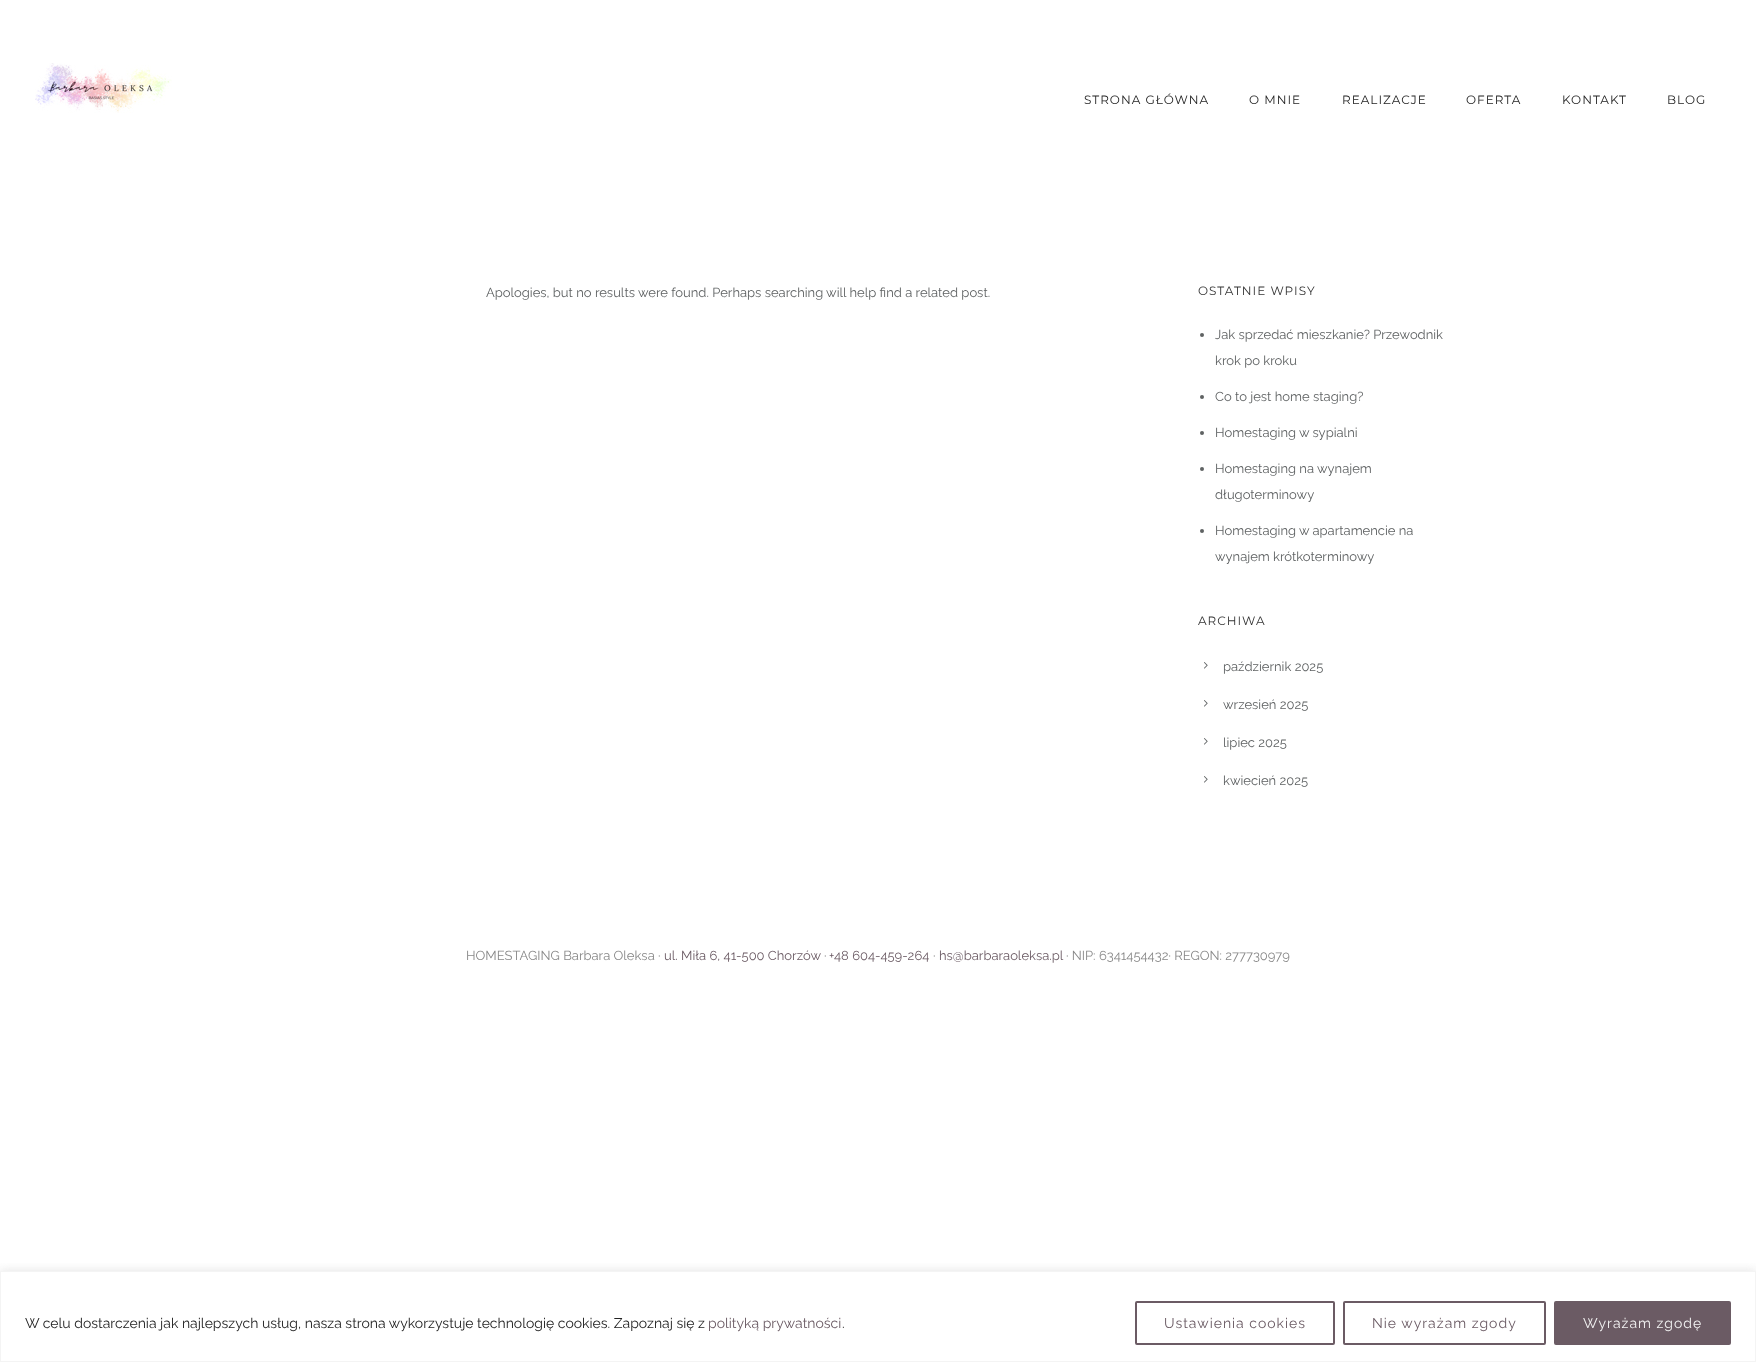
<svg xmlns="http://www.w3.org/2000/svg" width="1756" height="1362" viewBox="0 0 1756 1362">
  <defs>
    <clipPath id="clip1"><rect x="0" y="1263" width="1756" height="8"/></clipPath>
  </defs>
  <rect width="100%" height="100%" fill="rgb(255,255,255)"/>
  <image x="35" y="63" width="137" height="50" href="pic1.png"/>
  <g font-family="Montserrat" font-size="12" letter-spacing="1" fill="rgb(35,35,35)">
    <text x="1084" y="104">STRONA GŁÓWNA</text>
    <text x="1249" y="104">O MNIE</text>
    <text x="1342" y="104">REALIZACJE</text>
    <text x="1466" y="104">OFERTA</text>
    <text x="1562" y="104">KONTAKT</text>
    <text x="1667" y="104">BLOG</text>
  </g>
  <text x="486" y="297" font-family="Raleway" font-size="13" fill="rgb(95,98,99)">Apologies, but no results were found. Perhaps searching will help find a related post.</text>
  <text x="1198" y="295" font-family="Montserrat" font-size="12" letter-spacing="1" fill="rgb(51,51,51)">OSTATNIE WPISY</text>
  <circle cx="1202" cy="335" r="2" fill="rgb(95,98,99)"/>
  <g font-family="Raleway" font-size="13" fill="rgb(95,98,99)">
    <text x="1215" y="339">Jak sprzedać mieszkanie? Przewodnik</text>
    <text x="1215" y="365">krok po kroku</text>
  </g>
  <circle cx="1202" cy="397" r="2" fill="rgb(95,98,99)"/>
  <text x="1215" y="401" font-family="Raleway" font-size="13" fill="rgb(95,98,99)">Co to jest home staging?</text>
  <circle cx="1202" cy="433" r="2" fill="rgb(95,98,99)"/>
  <text x="1215" y="437" font-family="Raleway" font-size="13" fill="rgb(95,98,99)">Homestaging w sypialni</text>
  <circle cx="1202" cy="469" r="2" fill="rgb(95,98,99)"/>
  <g font-family="Raleway" font-size="13" fill="rgb(95,98,99)">
    <text x="1215" y="473">Homestaging na wynajem</text>
    <text x="1215" y="499">długoterminowy</text>
  </g>
  <circle cx="1202" cy="531" r="2" fill="rgb(95,98,99)"/>
  <g font-family="Raleway" font-size="13" fill="rgb(95,98,99)">
    <text x="1215" y="535">Homestaging w apartamencie na</text>
    <text x="1215" y="561">wynajem krótkoterminowy</text>
  </g>
  <text x="1198" y="625" font-family="Montserrat" font-size="12" letter-spacing="1" fill="rgb(51,51,51)">ARCHIWA</text>
  <image x="1204" y="662" width="4" height="7" href="pic2.png"/>
  <text x="1223" y="671" font-family="Raleway" font-size="13" fill="rgb(95,98,99)">październik 2025</text>
  <image x="1204" y="700" width="4" height="7" href="pic2.png"/>
  <text x="1223" y="709" font-family="Raleway" font-size="13" fill="rgb(95,98,99)">wrzesień 2025</text>
  <image x="1204" y="738" width="4" height="7" href="pic2.png"/>
  <text x="1223" y="747" font-family="Raleway" font-size="13" fill="rgb(95,98,99)">lipiec 2025</text>
  <image x="1204" y="776" width="4" height="7" href="pic2.png"/>
  <text x="1223" y="785" font-family="Raleway" font-size="13" fill="rgb(95,98,99)">kwiecień 2025</text>
  <text x="466" y="960" font-family="Raleway" font-size="13" fill="rgb(136,136,136)">HOMESTAGING Barbara Oleksa ·</text>
  <text x="664" y="960" font-family="Raleway" font-size="13" fill="rgb(107,91,100)">ul. Miła 6, 41-500 Chorzów</text>
  <text x="824" y="960" font-family="Raleway" font-size="13" fill="rgb(136,136,136)">·</text>
  <text x="829" y="960" font-family="Raleway" font-size="13" fill="rgb(107,91,100)">+48 604-459-264</text>
  <text x="933" y="960" font-family="Raleway" font-size="13" fill="rgb(136,136,136)">·</text>
  <text x="939" y="960" font-family="Raleway" font-size="13" fill="rgb(107,91,100)">hs@barbaraoleksa.pl</text>
  <text x="1066" y="960" font-family="Raleway" font-size="13" fill="rgb(136,136,136)">· NIP: 6341454432· REGON: 277730979</text>
  <g clip-path="url(#clip1)">
    <rect x="0" y="1270" width="1756" height="91" fill="rgba(172,171,171,0.3)" filter="blur(5px)"/>
  </g>
  <rect x="0.5" y="1271.5" width="1755" height="90" fill="none" stroke="rgb(244,244,244)"/>
  <text x="25" y="1328" font-family="Raleway" font-size="14" fill="rgb(35,35,35)">W celu dostarczenia jak najlepszych usług, nasza strona wykorzystuje technologię cookies. Zapoznaj się z</text>
  <text x="708" y="1328" font-family="Raleway" font-size="14" fill="rgb(107,91,100)">polityką prywatności</text>
  <text x="842" y="1328" font-family="Raleway" font-size="14" fill="rgb(35,35,35)">.</text>
  <rect x="1136" y="1302" width="198" height="42" rx="1" fill="none" stroke="rgb(107,91,100)" stroke-width="2"/>
  <text x="1164" y="1328" font-family="Raleway" font-size="14" letter-spacing="1" fill="rgb(107,91,100)">Ustawienia cookies</text>
  <rect x="1344" y="1302" width="201" height="42" rx="1" fill="none" stroke="rgb(107,91,100)" stroke-width="2"/>
  <text x="1372" y="1328" font-family="Raleway" font-size="14" letter-spacing="1" fill="rgb(107,91,100)">Nie wyrażam zgody</text>
  <rect x="1555" y="1302" width="175" height="42" rx="1" fill="rgb(107,91,100)" stroke="rgb(107,91,100)" stroke-width="2"/>
  <text x="1583" y="1328" font-family="Raleway" font-size="14" letter-spacing="1" fill="rgb(244,244,244)">Wyrażam zgodę</text>
</svg>
